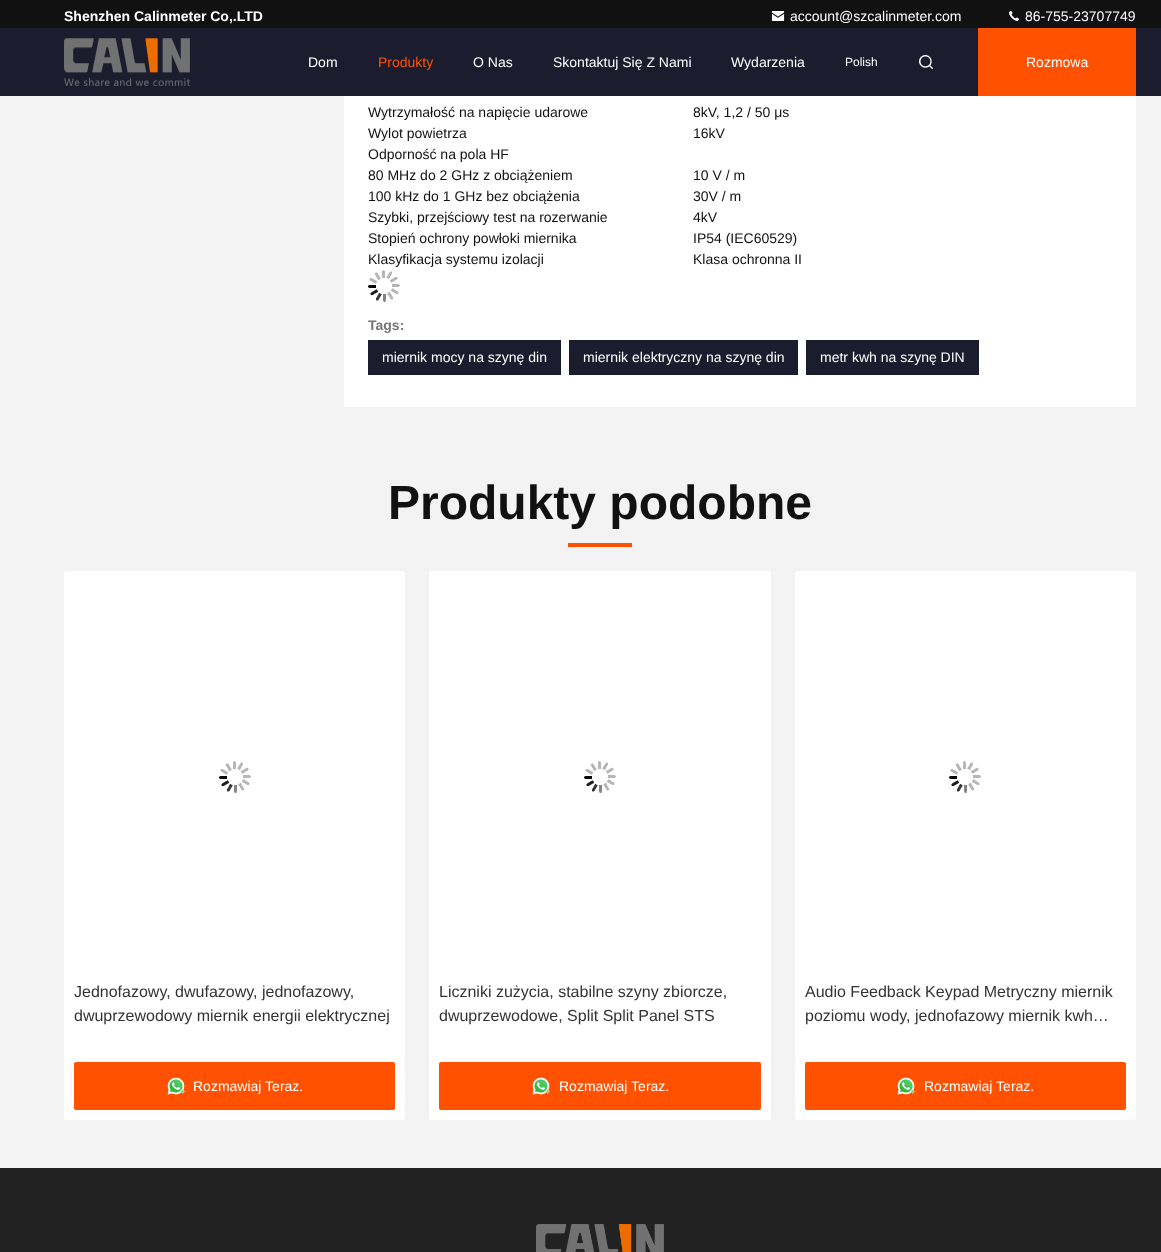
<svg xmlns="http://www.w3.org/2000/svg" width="1161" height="1252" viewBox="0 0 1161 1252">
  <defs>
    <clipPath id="clip1"><rect x="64" y="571" width="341" height="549"/></clipPath>
    <clipPath id="clip2"><rect x="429" y="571" width="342" height="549"/></clipPath>
    <clipPath id="clip3"><rect x="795" y="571" width="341" height="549"/></clipPath>
  </defs>
  <rect width="100%" height="100%" fill="rgb(243,243,243)"/>
  <rect x="0" y="0" width="1161" height="28" fill="rgb(17,17,17)"/>
  <text x="64" y="21" font-family="Liberation Sans" font-size="14" font-weight="bold" fill="rgb(255,255,255)">Shenzhen Calinmeter Co,.LTD</text>
  <image x="771" y="11" width="14" height="10" href="pic1.png"/>
  <text x="790" y="21" font-family="Liberation Sans" font-size="14" fill="rgb(255,255,255)">account@szcalinmeter.com</text>
  <image x="1009" y="11" width="10" height="10" href="pic2.png"/>
  <text x="1025" y="21" font-family="Liberation Sans" font-size="14" fill="rgb(255,255,255)">86-755-23707749</text>
  <rect x="0" y="28" width="1161" height="68" fill="rgb(27,29,46)"/>
  <image x="64" y="38" width="126" height="48" href="pic3.png"/>
  <text x="308" y="67" font-family="Liberation Sans" font-size="14" fill="rgb(255,255,255)">Dom</text>
  <text x="378" y="67" font-family="Liberation Sans" font-size="14" fill="rgb(255,81,0)">Produkty</text>
  <g font-family="Liberation Sans" font-size="14" fill="rgb(255,255,255)">
    <text x="473" y="67">O Nas</text>
    <text x="553" y="67">Skontaktuj Się Z Nami</text>
    <text x="731" y="67">Wydarzenia</text>
  </g>
  <text x="845" y="66" font-family="Liberation Sans" font-size="12" fill="rgb(255,255,255)">Polish</text>
  <image x="919" y="55" width="14" height="14" href="pic4.png"/>
  <rect x="978" y="28" width="158" height="68" fill="rgb(255,81,0)"/>
  <text x="1026" y="67" font-family="Liberation Sans" font-size="14" fill="rgb(255,255,255)">Rozmowa</text>
  <rect x="344" y="96" width="792" height="311" fill="rgb(255,255,255)"/>
  <g font-family="Liberation Sans" font-size="14" fill="rgb(17,17,17)">
    <text x="368" y="117">Wytrzymałość na napięcie udarowe</text>
    <text x="693" y="117">8kV, 1,2 / 50 μs</text>
    <text x="368" y="138">Wylot powietrza</text>
    <text x="693" y="138">16kV</text>
    <text>
      <tspan x="368" y="159">Odporność na pola HF</tspan>
      <tspan x="368" y="180">80 MHz do 2 GHz z obciążeniem</tspan>
    </text>
    <text x="693" y="180">10 V / m</text>
    <text x="368" y="201">100 kHz do 1 GHz bez obciążenia</text>
    <text x="693" y="201">30V / m</text>
    <text x="368" y="222">Szybki, przejściowy test na rozerwanie</text>
    <text x="693" y="222">4kV</text>
    <text x="368" y="243">Stopień ochrony powłoki miernika</text>
    <text x="693" y="243">IP54 (IEC60529)</text>
    <text x="368" y="264">Klasyfikacja systemu izolacji</text>
    <text x="693" y="264">Klasa ochronna II</text>
  </g>
  <image x="368" y="270" width="32" height="32" href="pic5.png"/>
  <text x="368" y="330" font-family="Liberation Sans" font-size="14" font-weight="bold" fill="rgb(119,119,119)">Tags:</text>
  <rect x="368" y="340" width="193" height="35" fill="rgb(27,29,46)"/>
  <text x="382" y="362" font-family="Liberation Sans" font-size="14" fill="rgb(255,255,255)">miernik mocy na szynę din</text>
  <rect x="569" y="340" width="229" height="35" fill="rgb(27,29,46)"/>
  <text x="583" y="362" font-family="Liberation Sans" font-size="14" fill="rgb(255,255,255)">miernik elektryczny na szynę din</text>
  <rect x="806" y="340" width="173" height="35" fill="rgb(27,29,46)"/>
  <text x="820" y="362" font-family="Liberation Sans" font-size="14" fill="rgb(255,255,255)">metr kwh na szynę DIN</text>
  <text x="388" y="519" font-family="Liberation Sans" font-size="48" font-weight="bold" fill="rgb(17,17,17)">Produkty podobne</text>
  <rect x="568" y="543" width="64" height="4" fill="rgb(255,81,0)"/>
  <g clip-path="url(#clip1)">
    <rect x="64" y="575" width="341" height="549" rx="2" fill="rgba(0,0,0,0.08)" filter="blur(6px)"/>
  </g>
  <rect x="64" y="571" width="341" height="549" rx="2" fill="rgb(255,255,255)"/>
  <image x="219" y="761" width="32" height="32" href="pic5.png"/>
  <g font-family="Liberation Sans" font-size="16" fill="rgb(51,51,51)">
    <text>
      <tspan x="74" y="997">Jednofazowy, dwufazowy, jednofazowy,</tspan>
      <tspan x="74" y="1021">dwuprzewodowy miernik energii elektrycznej</tspan>
    </text>
  </g>
  <rect x="74" y="1062" width="321" height="48" rx="2" fill="rgb(255,81,0)"/>
  <image x="167" y="1077" width="18" height="18" href="pic6.png"/>
  <text x="193" y="1091" font-family="Liberation Sans" font-size="14" fill="rgb(255,255,255)">Rozmawiaj Teraz.</text>
  <g clip-path="url(#clip2)">
    <rect x="429" y="575" width="342" height="549" rx="2" fill="rgba(0,0,0,0.08)" filter="blur(6px)"/>
  </g>
  <rect x="429" y="571" width="342" height="549" rx="2" fill="rgb(255,255,255)"/>
  <image x="584" y="761" width="32" height="32" href="pic5.png"/>
  <g font-family="Liberation Sans" font-size="16" fill="rgb(51,51,51)">
    <text>
      <tspan x="439" y="997">Liczniki zużycia, stabilne szyny zbiorcze,</tspan>
      <tspan x="439" y="1021">dwuprzewodowe, Split Split Panel STS</tspan>
    </text>
  </g>
  <rect x="439" y="1062" width="322" height="48" rx="2" fill="rgb(255,81,0)"/>
  <image x="532" y="1077" width="18" height="18" href="pic6.png"/>
  <text x="559" y="1091" font-family="Liberation Sans" font-size="14" fill="rgb(255,255,255)">Rozmawiaj Teraz.</text>
  <g clip-path="url(#clip3)">
    <rect x="795" y="575" width="341" height="549" rx="2" fill="rgba(0,0,0,0.08)" filter="blur(6px)"/>
  </g>
  <rect x="795" y="571" width="341" height="549" rx="2" fill="rgb(255,255,255)"/>
  <image x="949" y="761" width="32" height="32" href="pic5.png"/>
  <g font-family="Liberation Sans" font-size="16" fill="rgb(51,51,51)">
    <text>
      <tspan x="805" y="997">Audio Feedback Keypad Metryczny miernik</tspan>
      <tspan x="805" y="1021">poziomu wody, jednofazowy miernik kwh…</tspan>
    </text>
  </g>
  <rect x="805" y="1062" width="321" height="48" rx="2" fill="rgb(255,81,0)"/>
  <image x="897" y="1077" width="18" height="18" href="pic6.png"/>
  <text x="924" y="1091" font-family="Liberation Sans" font-size="14" fill="rgb(255,255,255)">Rozmawiaj Teraz.</text>
  <rect x="0" y="1168" width="1161" height="84" fill="rgb(34,34,34)"/>
  <image x="536" y="1224" width="128" height="28" href="pic7.png"/>
</svg>
